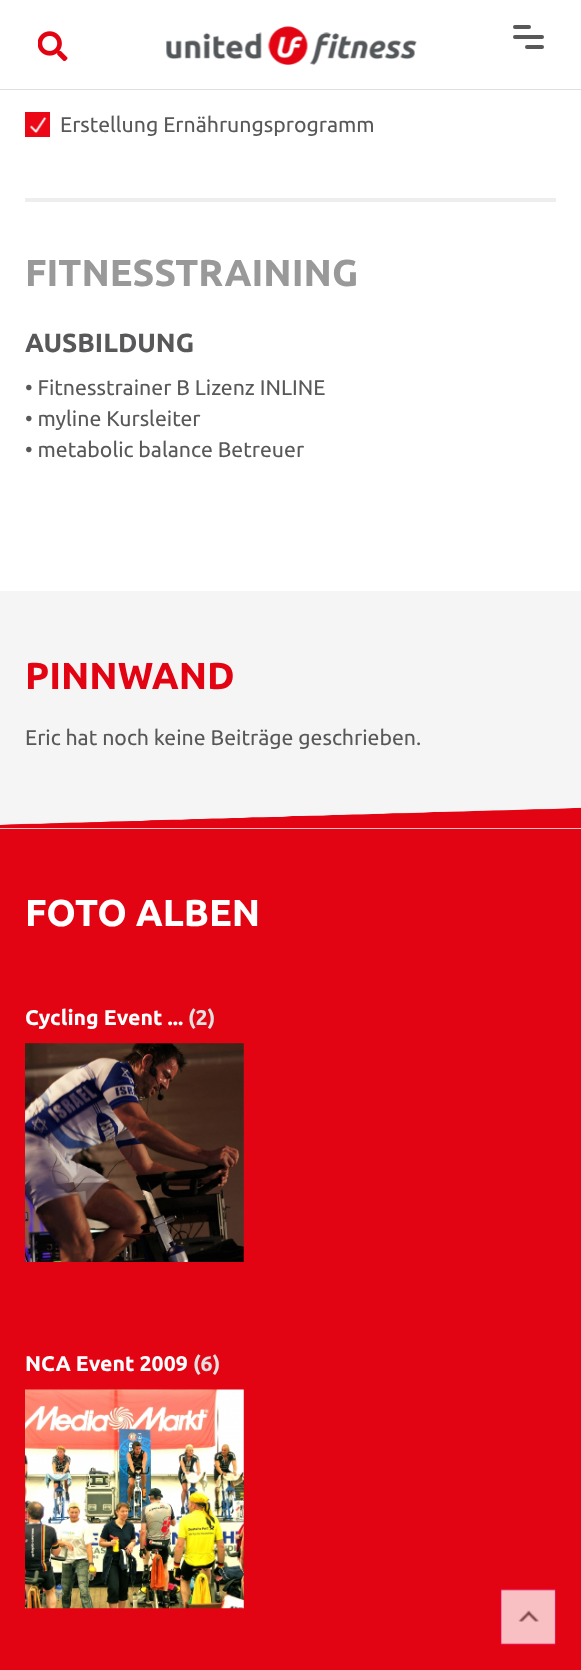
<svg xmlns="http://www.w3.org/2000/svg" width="581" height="1670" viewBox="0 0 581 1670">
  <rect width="100%" height="100%" fill="rgb(255,255,255)"/>
  <rect x="0" y="89" width="581" height="1" fill="rgb(223,223,223)"/>
  <image x="38" y="31" width="30" height="30" href="pic1.png"/>
  <image x="166" y="26" width="251" height="39" href="pic2.png"/>
  <rect x="513" y="25" width="18" height="4" rx="2" fill="rgb(88,88,90)"/>
  <rect x="513" y="35" width="31" height="4" rx="2" fill="rgb(88,88,90)"/>
  <rect x="525" y="45" width="19" height="4" rx="2" fill="rgb(88,88,90)"/>
  <image x="25" y="112" width="25" height="25" href="pic3.png"/>
  <text x="60" y="132" font-family="Ubuntu" font-size="21.25" fill="rgb(88,88,90)">Erstellung Ernährungsprogramm</text>
  <rect x="25" y="198" width="531" height="4" fill="rgb(238,238,238)"/>
  <text x="25" y="286" font-family="Ubuntu" font-size="37.5" font-weight="bold" fill="rgb(153,153,153)">FITNESSTRAINING</text>
  <text x="25" y="352" font-family="Ubuntu" font-size="26.25" font-weight="bold" fill="rgb(88,88,90)">AUSBILDUNG</text>
  <g font-family="Ubuntu" font-size="21.25" fill="rgb(88,88,90)">
    <text>
      <tspan x="25" y="395">• Fitnesstrainer B Lizenz INLINE</tspan>
      <tspan x="25" y="426">• myline Kursleiter</tspan>
      <tspan x="25" y="457">• metabolic balance Betreuer</tspan>
    </text>
  </g>
  <rect x="0" y="591" width="581" height="216" fill="rgb(245,245,245)"/>
  <text x="25" y="689" font-family="Ubuntu" font-size="37.5" font-weight="bold" fill="rgb(227,4,19)">PINNWAND</text>
  <text x="25" y="745" font-family="Ubuntu" font-size="21.25" fill="rgb(88,88,90)">Eric hat noch keine Beiträge geschrieben.</text>
  <image x="0" y="807" width="581" height="22" href="pic4.png"/>
  <rect x="0" y="829" width="581" height="841" fill="rgb(227,4,19)"/>
  <text x="25" y="926" font-family="Ubuntu" font-size="37.5" font-weight="bold" fill="rgb(255,255,255)">FOTO ALBEN</text>
  <image x="25" y="1043" width="219" height="219" href="pic5.png"/>
  <text x="25" y="1025" font-family="Ubuntu" font-size="21.25" font-weight="bold" fill="rgb(255,255,255)">Cycling Event ...</text>
  <text x="188" y="1025" font-family="Ubuntu" font-size="21.25" font-weight="bold" fill="rgb(224,224,224)">(2)</text>
  <image x="25" y="1389" width="219" height="220" href="pic6.png"/>
  <text x="25" y="1371" font-family="Ubuntu" font-size="21.25" font-weight="bold" fill="rgb(255,255,255)">NCA Event 2009</text>
  <text x="193" y="1371" font-family="Ubuntu" font-size="21.25" font-weight="bold" fill="rgb(224,224,224)">(6)</text>
  <image x="500" y="1588" width="57" height="58" href="pic7.png"/>
</svg>
